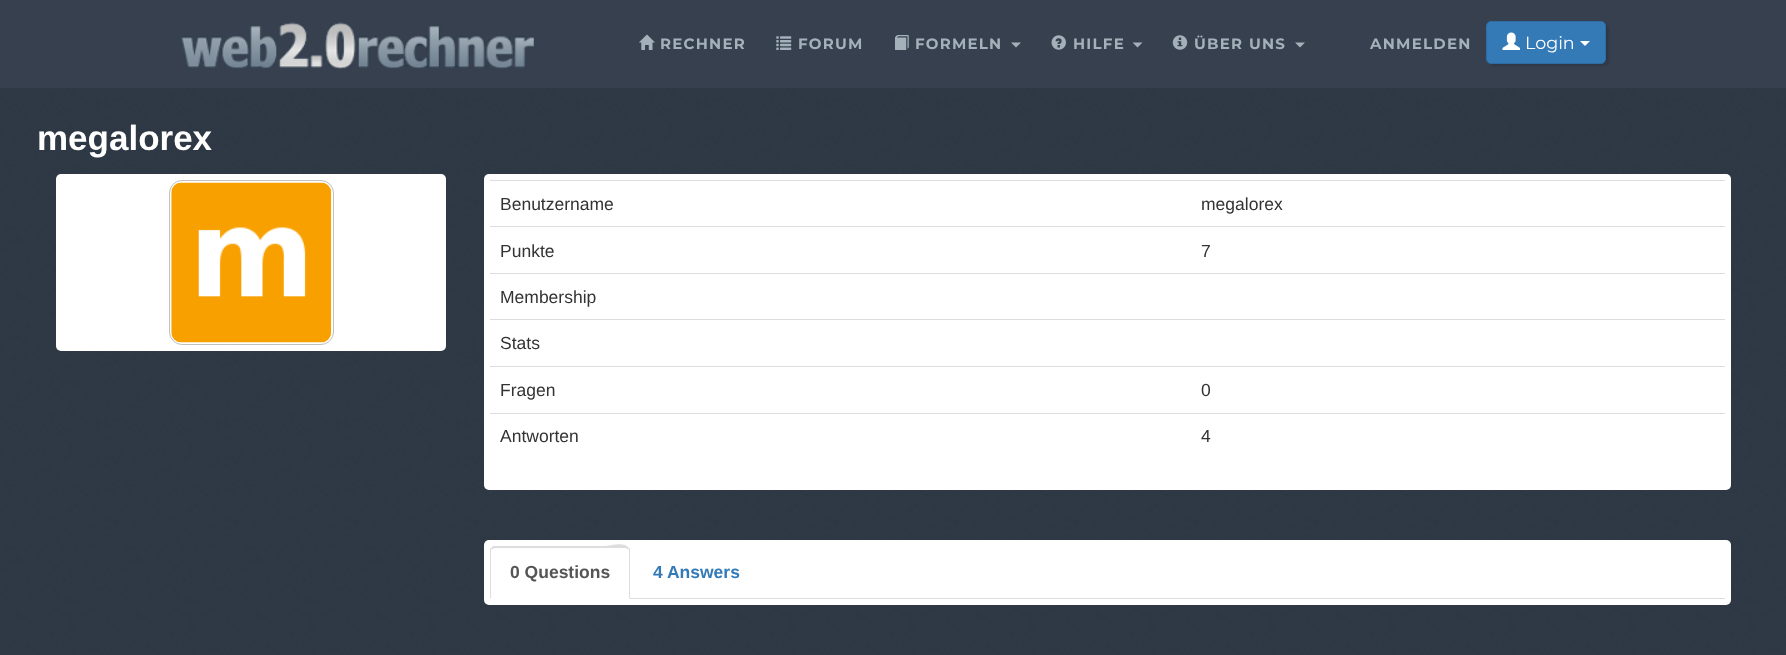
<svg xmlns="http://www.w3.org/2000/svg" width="1786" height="655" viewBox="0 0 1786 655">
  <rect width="100%" height="100%" fill="rgb(255,255,255)"/>
  <image x="0" y="88" width="1786" height="567" href="pic1.png"/>
  <rect x="0" y="0" width="1786" height="88" fill="rgb(54,64,79)"/>
  <image x="181" y="22" width="353" height="47" href="pic2.png"/>
  <image x="639" y="34" width="16" height="16" href="pic3.png"/>
  <text x="660" y="49" font-family="Montserrat" font-size="15" font-weight="bold" letter-spacing="1.25" fill="rgb(164,176,186)">RECHNER</text>
  <image x="776" y="36" width="16" height="14" href="pic4.png"/>
  <text x="798" y="49" font-family="Montserrat" font-size="15" font-weight="bold" letter-spacing="1.25" fill="rgb(164,176,186)">FORUM</text>
  <image x="895" y="35" width="14" height="15" href="pic5.png"/>
  <text x="915" y="49" font-family="Montserrat" font-size="15" font-weight="bold" letter-spacing="1.25" fill="rgb(164,176,186)">FORMELN</text>
  <path d="M1011 42.5H1021L1016 47.5Z" fill="rgb(164,176,186)"/>
  <image x="1051" y="35" width="15" height="15" href="pic6.png"/>
  <text x="1073" y="49" font-family="Montserrat" font-size="15" font-weight="bold" letter-spacing="1.25" fill="rgb(164,176,186)">HILFE</text>
  <path d="M1132.5 42.5H1142.5L1137.5 47.5Z" fill="rgb(164,176,186)"/>
  <image x="1172" y="35" width="16" height="15" href="pic7.png"/>
  <text x="1194" y="49" font-family="Montserrat" font-size="15" font-weight="bold" letter-spacing="1.25" fill="rgb(164,176,186)">ÜBER UNS</text>
  <path d="M1295 42.5H1305L1300 47.5Z" fill="rgb(164,176,186)"/>
  <text x="1370" y="49" font-family="Montserrat" font-size="15" font-weight="bold" letter-spacing="1.25" fill="rgb(164,176,186)">ANMELDEN</text>
  <rect x="1489" y="24" width="120" height="42" rx="5" fill="rgba(0,0,0,0.13)" filter="blur(1px)"/>
  <rect x="1486.5" y="21.5" width="119" height="42" rx="4.5" fill="rgb(51,122,183)" stroke="rgb(46,109,164)"/>
  <image x="1502" y="32" width="18" height="18" href="pic8.png"/>
  <text x="1525" y="49" font-family="Montserrat" font-size="17.5" fill="rgb(255,255,255)">Login</text>
  <path d="M1580 41H1590L1585 46Z" fill="rgb(255,255,255)"/>
  <text x="37" y="150" font-family="Liberation Sans" font-size="35" font-weight="bold" fill="rgb(255,255,255)">megalorex</text>
  <rect x="56" y="174" width="390" height="177" rx="5" fill="rgb(255,255,255)"/>
  <rect x="169.5" y="180.5" width="164" height="164" rx="12.5" fill="none" stroke="rgb(192,192,192)"/>
  <image x="171" y="182" width="161" height="161" href="pic9.png"/>
  <rect x="484" y="174" width="1247" height="316" rx="5" fill="rgb(255,255,255)"/>
  <text x="500" y="210" font-family="Liberation Sans" font-size="17.5" fill="rgb(51,51,51)">Benutzername</text>
  <rect x="490" y="180" width="1235" height="1" fill="rgb(221,221,221)"/>
  <g font-family="Liberation Sans" font-size="17.5" fill="rgb(51,51,51)">
    <text x="1201" y="210">megalorex</text>
    <text x="500" y="257">Punkte</text>
  </g>
  <rect x="490" y="226" width="1235" height="1" fill="rgb(221,221,221)"/>
  <text x="1201" y="257" font-family="Liberation Sans" font-size="17.5" fill="rgb(51,51,51)">7</text>
  <rect x="490" y="273" width="1235" height="1" fill="rgb(221,221,221)"/>
  <text x="500" y="303" font-family="Liberation Sans" font-size="17.5" fill="rgb(51,51,51)">Membership</text>
  <rect x="490" y="319" width="1235" height="1" fill="rgb(221,221,221)"/>
  <g font-family="Liberation Sans" font-size="17.5" fill="rgb(51,51,51)">
    <text x="500" y="349">Stats</text>
    <text x="500" y="396">Fragen</text>
  </g>
  <rect x="490" y="366" width="1235" height="1" fill="rgb(221,221,221)"/>
  <g font-family="Liberation Sans" font-size="17.5" fill="rgb(51,51,51)">
    <text x="1201" y="396">0</text>
    <text x="500" y="442">Antworten</text>
  </g>
  <rect x="490" y="413" width="1235" height="1" fill="rgb(221,221,221)"/>
  <text x="1201" y="442" font-family="Liberation Sans" font-size="17.5" fill="rgb(51,51,51)">4</text>
  <rect x="484" y="540" width="1247" height="65" rx="5" fill="rgb(255,255,255)"/>
  <rect x="630" y="598" width="1095" height="1" fill="rgb(221,221,221)"/>
  <path d="M495 548L492 549L491 548L493 546H604C613 546 623 541 629 548L628 549L625 548Z" fill="rgb(221,221,221)"/>
  <path d="M630 599V551C630 550 630 548 629 548L628 549L629 550V598Z" fill="rgb(221,221,221)"/>
  <path d="M490 599L491 598V550L492 549L491 548C490 548 490 550 490 551Z" fill="rgb(221,221,221)"/>
  <text x="510" y="578" font-family="Liberation Sans" font-size="17.5" font-weight="bold" fill="rgb(85,85,85)">0 Questions</text>
  <text x="653" y="578" font-family="Liberation Sans" font-size="17.5" font-weight="bold" fill="rgb(51,122,183)">4 Answers</text>
</svg>
